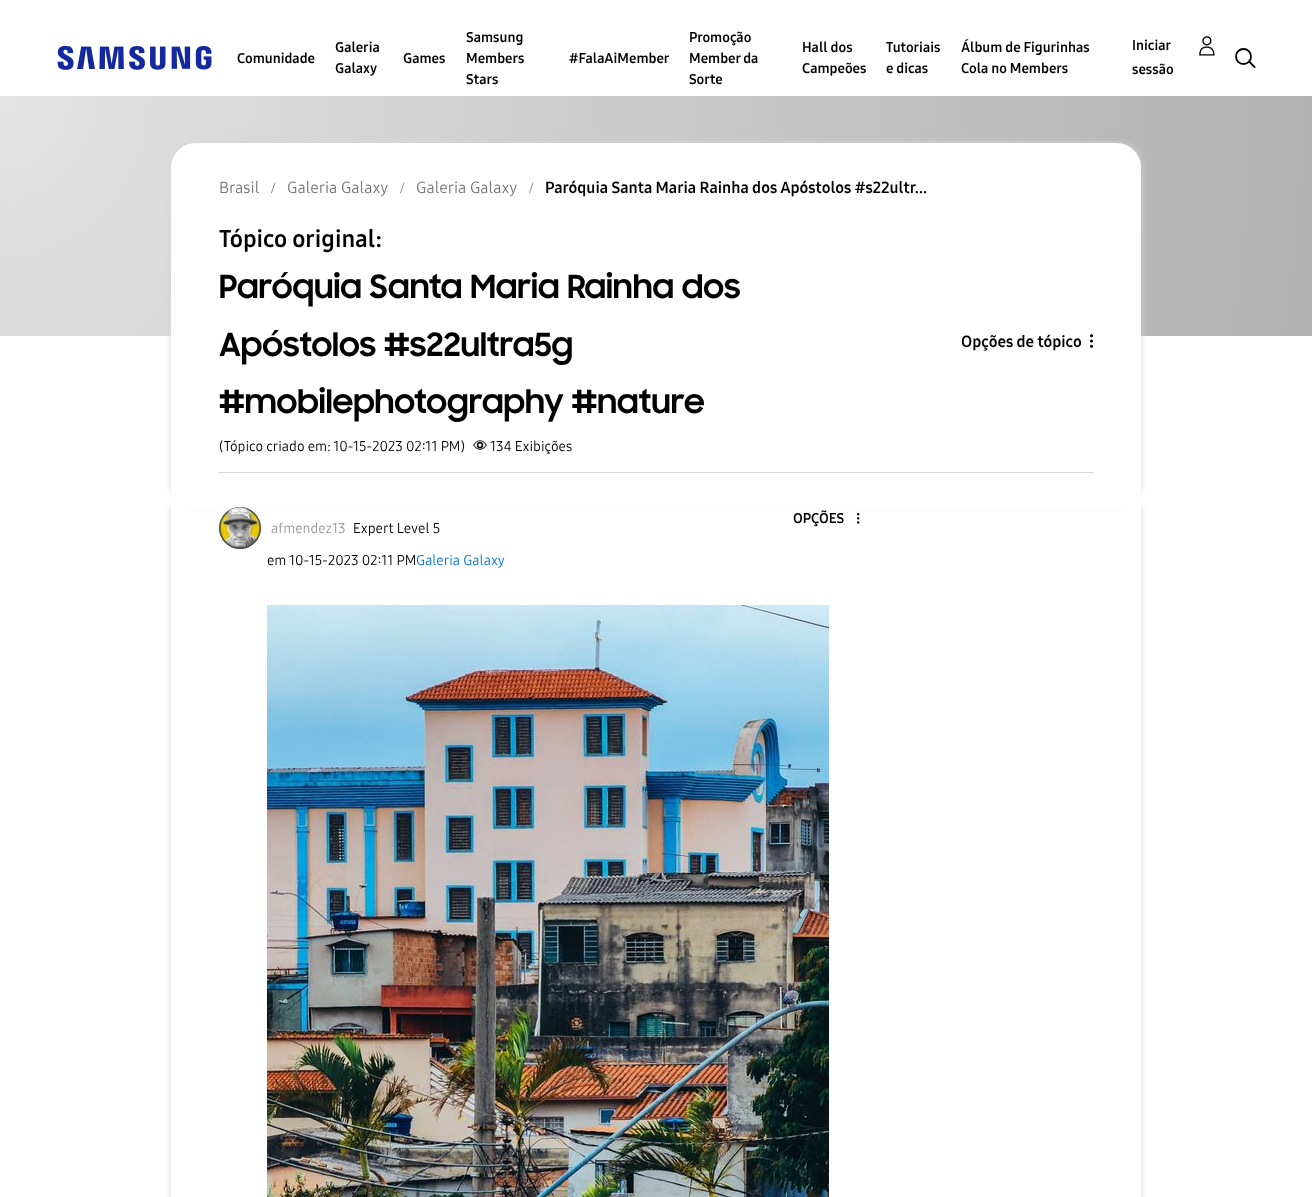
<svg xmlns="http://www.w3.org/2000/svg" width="1312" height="1197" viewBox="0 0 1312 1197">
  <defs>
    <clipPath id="clip1"><path d="M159 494H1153V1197H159ZM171 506H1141V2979H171Z" clip-rule="evenodd"/></clipPath>
    <radialGradient id="g1" gradientUnits="userSpaceOnUse" cx="0" cy="0" r="1" gradientTransform="matrix(1312 0 0 1440 0 96)"><stop offset="0" stop-color="rgb(227,227,227)"/><stop offset="1" stop-color="rgb(177,177,177)"/></radialGradient>
  </defs>
  <rect width="100%" height="100%" fill="rgb(255,255,255)"/>
  <g clip-path="url(#clip1)">
    <rect x="171" y="506" width="970" height="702" fill="rgb(214,214,214)" filter="blur(3.5px)"/>
  </g>
  <rect x="167" y="501" width="978" height="5" fill="rgb(255,255,255)"/>
  <image x="57" y="46" width="155" height="24" href="pic1.png"/>
  <g font-family="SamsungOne" font-size="14" font-weight="bold" fill="rgb(0,0,0)">
    <text x="237" y="63">Comunidade</text>
    <text>
      <tspan x="335" y="52">Galeria</tspan>
      <tspan x="335" y="73">Galaxy</tspan>
    </text>
    <text x="403" y="63">Games</text>
    <text>
      <tspan x="466" y="42">Samsung</tspan>
      <tspan x="466" y="63">Members</tspan>
      <tspan x="466" y="84">Stars</tspan>
    </text>
    <text x="569" y="63">#FalaAiMember</text>
    <text>
      <tspan x="689" y="42">Promoção</tspan>
      <tspan x="689" y="63">Member da</tspan>
      <tspan x="689" y="84">Sorte</tspan>
    </text>
    <text>
      <tspan x="802" y="52">Hall dos</tspan>
      <tspan x="802" y="73">Campeões</tspan>
    </text>
    <text>
      <tspan x="886" y="52">Tutoriais</tspan>
      <tspan x="886" y="73">e dicas</tspan>
    </text>
    <text>
      <tspan x="961" y="52">Álbum de Figurinhas</tspan>
      <tspan x="961" y="73">Cola no Members</tspan>
    </text>
    <text x="1132" y="50">Iniciar</text>
  </g>
  <image x="1199" y="36" width="16" height="20" href="pic2.png"/>
  <text x="1132" y="74" font-family="SamsungOne" font-size="14" font-weight="bold" fill="rgb(0,0,0)">sessão</text>
  <circle cx="1243.5" cy="56.5" r="7.5" fill="none" stroke="rgb(0,0,0)" stroke-width="1.8"/>
  <path d="M1250 62.5L1254.5 67" fill="none" stroke="rgb(0,0,0)" stroke-width="1.8" stroke-linecap="square"/>
  <rect x="0" y="96" width="1312" height="240" fill="url(#g1)"/>
  <rect x="171" y="143" width="970" height="363" rx="25" fill="rgb(214,214,214)" filter="blur(3.5px)"/>
  <path d="M196 143H1116C1130 143 1141 154 1141 168V506H171V168C171 154 182 143 196 143Z" fill="rgb(255,255,255)"/>
  <rect x="219" y="472" width="874" height="1" fill="rgb(214,214,214)"/>
  <text x="219" y="193" font-family="SamsungOne" font-size="16" fill="rgb(118,118,118)">Brasil</text>
  <text x="271" y="193" font-family="Liberation Serif" font-size="16" fill="rgb(118,118,118)">/</text>
  <text x="287" y="193" font-family="SamsungOne" font-size="16" fill="rgb(118,118,118)">Galeria Galaxy</text>
  <text x="400" y="193" font-family="Liberation Serif" font-size="16" fill="rgb(118,118,118)">/</text>
  <text x="416" y="193" font-family="SamsungOne" font-size="16" fill="rgb(118,118,118)">Galeria Galaxy</text>
  <text x="529" y="193" font-family="Liberation Serif" font-size="16" fill="rgb(118,118,118)">/</text>
  <text x="545" y="193" font-family="SamsungOne" font-size="16" font-weight="bold" fill="rgb(0,0,0)">Paróquia Santa Maria Rainha dos Apóstolos #s22ultr...</text>
  <text x="219" y="247" font-family="SamsungOne" font-size="24" font-weight="bold" fill="rgb(0,0,0)">Tópico original:</text>
  <g font-family="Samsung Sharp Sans" font-size="32" font-weight="bold" fill="rgb(0,0,0)">
    <text>
      <tspan x="219" y="298">Paróquia Santa Maria Rainha dos</tspan>
      <tspan x="219" y="356">Apóstolos #s22ultra5g</tspan>
      <tspan x="219" y="413">#mobilephotography #nature</tspan>
    </text>
  </g>
  <text x="961" y="347" font-family="SamsungOne" font-size="16" font-weight="bold" fill="rgb(0,0,0)">Opções de tópico</text>
  <image x="1090" y="334" width="3" height="14" href="pic3.png"/>
  <text x="219" y="451" font-family="SamsungOne" font-size="14" fill="rgb(0,0,0)">(Tópico criado em: 10-15-2023 02:11 PM)</text>
  <image x="473" y="440" width="14" height="10" href="pic4.png"/>
  <text x="490" y="451" font-family="SamsungOne" font-size="14" fill="rgb(0,0,0)">134 Exibições</text>
  <rect x="172" y="506" width="968" height="4" fill="rgb(255,255,255)"/>
  <rect x="219" y="510" width="641" height="1" fill="rgb(255,255,255)"/>
  <text x="793" y="523" font-family="SamsungOne" font-size="14" font-weight="bold" fill="rgb(0,0,0)">OPÇÕES</text>
  <image x="857" y="513" width="3" height="11" href="pic5.png"/>
  <rect x="219" y="507" width="42" height="42" rx="21" fill="rgb(153,153,153)" filter="blur(0.5px)"/>
  <image x="219" y="507" width="42" height="42" href="pic6.png"/>
  <text x="271" y="533" font-family="SamsungOne" font-size="14" fill="rgb(153,153,153)">afmendez13</text>
  <g font-family="SamsungOne" font-size="14" fill="rgb(0,0,0)">
    <text x="353" y="533">Expert Level 5</text>
    <text x="267" y="565">em</text>
    <text x="289" y="565">10-15-2023 02:11 PM</text>
  </g>
  <text x="416" y="565" font-family="SamsungOne" font-size="14" fill="rgb(0,119,200)">Galeria Galaxy</text>
  <image x="267" y="605" width="562" height="592" href="pic7.png"/>
</svg>
